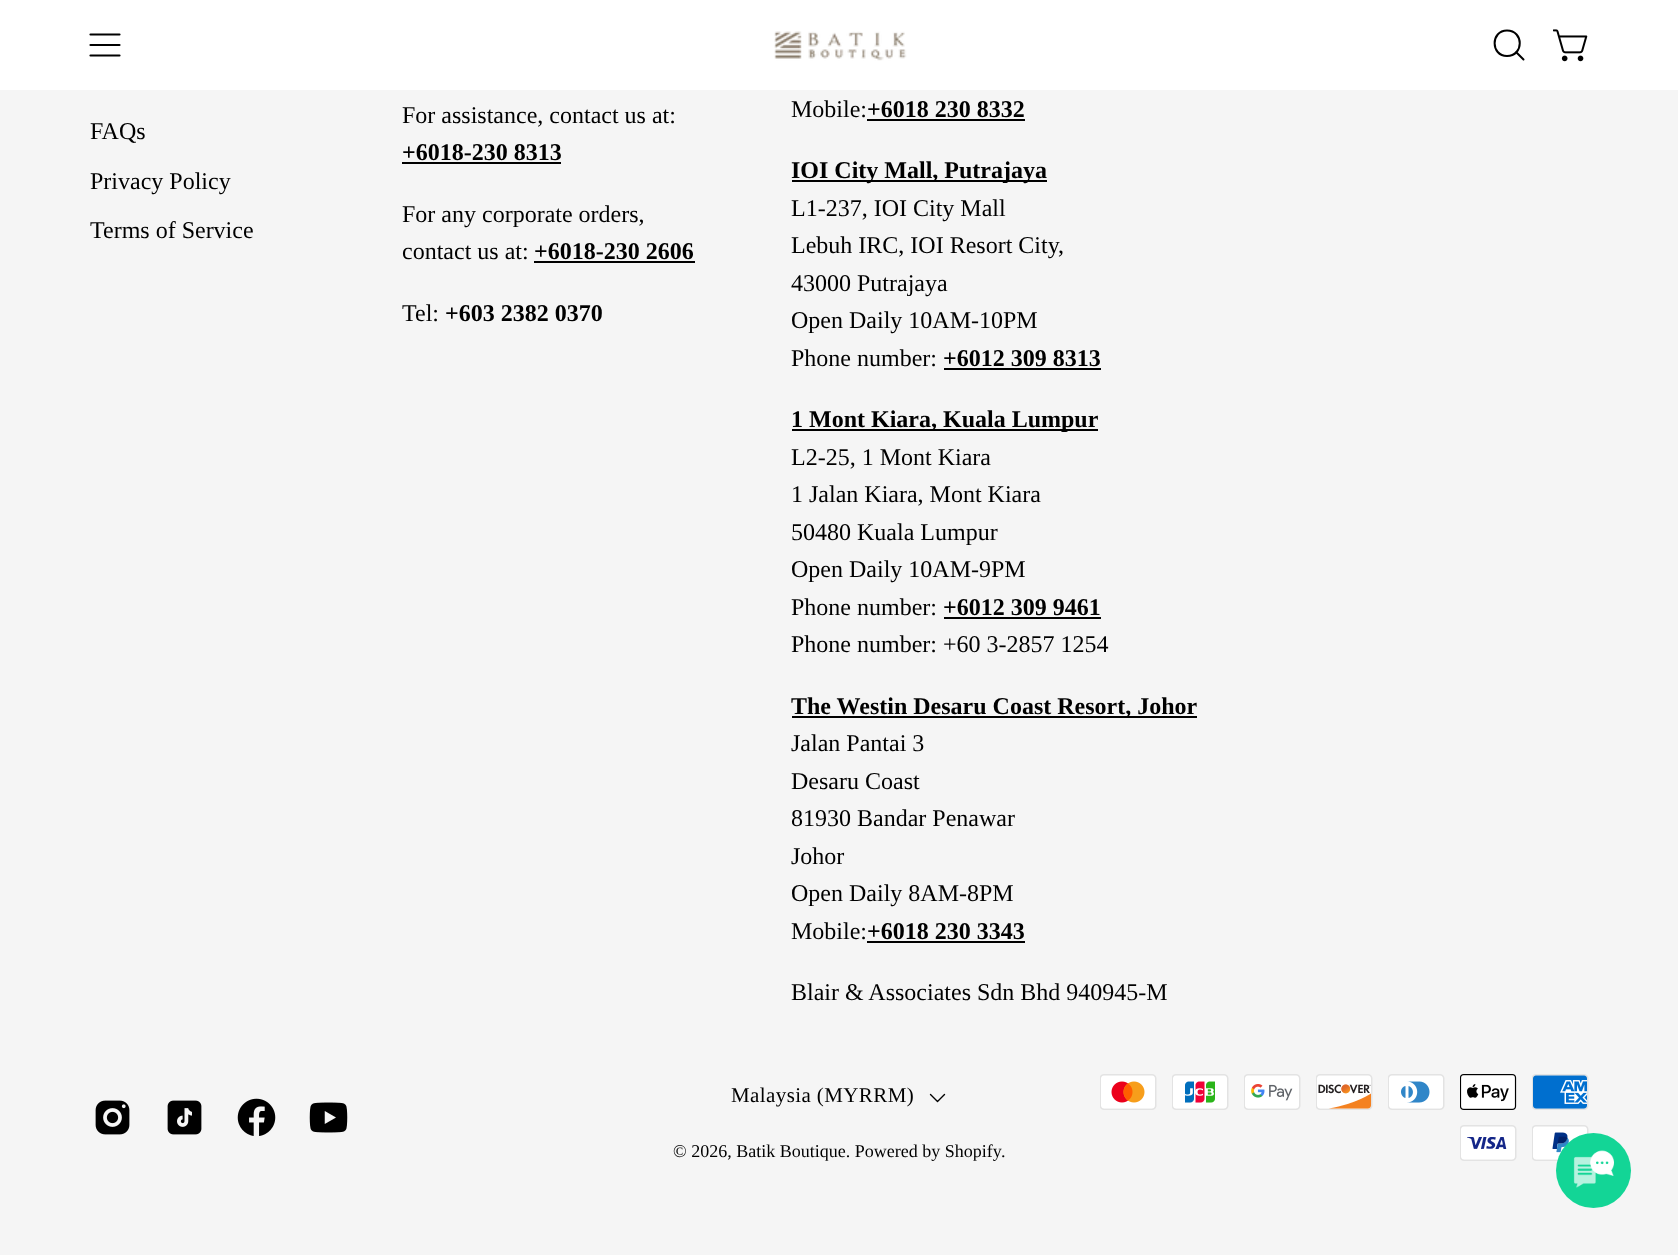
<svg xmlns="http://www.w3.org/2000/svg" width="1678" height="1255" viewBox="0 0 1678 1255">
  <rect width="100%" height="100%" fill="rgb(245,245,245)"/>
  <rect x="0" y="0" width="1678" height="90" fill="rgb(255,255,255)"/>
  <path d="M90.5 45H119.5M90.5 34.5H119.5M90.5 55.5H119.5" fill="none" stroke="rgb(0,0,0)" stroke-width="2.2" stroke-linecap="round" stroke-linejoin="round"/>
  <image x="774" y="31" width="133" height="30" href="pic1.png"/>
  <path d="M1507 56C1524 56 1524 30.5 1507 30.5C1490.5 30.5 1490.5 56 1507 56ZM1516 52L1523.5 59.5" fill="none" stroke="rgb(0,0,0)" stroke-width="2" stroke-linecap="round" stroke-linejoin="round"/>
  <image x="1553" y="29" width="35" height="33" href="pic2.png"/>
  <g font-family="Liberation Serif" font-size="24" fill="rgb(0,0,0)">
    <text x="90" y="139">FAQs</text>
    <text x="90" y="189">Privacy Policy</text>
    <text x="90" y="238">Terms of Service</text>
    <text x="402" y="123">For assistance, contact us at:</text>
  </g>
  <text x="402" y="160" font-family="Liberation Serif" font-size="24" font-weight="bold" fill="rgb(0,0,0)">+6018-230 8313</text>
  <rect x="402" y="162" width="159" height="2" fill="rgb(0,0,0)"/>
  <g font-family="Liberation Serif" font-size="24" fill="rgb(0,0,0)">
    <text>
      <tspan x="402" y="222">For any corporate orders,</tspan>
      <tspan x="402" y="259">contact us at:</tspan>
    </text>
  </g>
  <text x="534" y="259" font-family="Liberation Serif" font-size="24" font-weight="bold" fill="rgb(0,0,0)">+6018-230 2606</text>
  <rect x="534" y="261" width="161" height="2" fill="rgb(0,0,0)"/>
  <text x="402" y="321" font-family="Liberation Serif" font-size="24" fill="rgb(0,0,0)">Tel:</text>
  <text x="445" y="321" font-family="Liberation Serif" font-size="24" font-weight="bold" fill="rgb(0,0,0)">+603 2382 0370</text>
  <text x="791" y="117" font-family="Liberation Serif" font-size="24" fill="rgb(0,0,0)">Mobile:</text>
  <text x="867" y="117" font-family="Liberation Serif" font-size="24" font-weight="bold" fill="rgb(0,0,0)">+6018 230 8332</text>
  <rect x="867" y="119" width="158" height="2" fill="rgb(0,0,0)"/>
  <rect x="792" y="180" width="255" height="2" fill="rgb(0,0,0)"/>
  <text x="791" y="178" font-family="Liberation Serif" font-size="24" font-weight="bold" fill="rgb(0,0,0)">IOI City Mall, Putrajaya</text>
  <g font-family="Liberation Serif" font-size="24" fill="rgb(0,0,0)">
    <text>
      <tspan x="791" y="216">L1-237, IOI City Mall</tspan>
      <tspan x="791" y="253">Lebuh IRC, IOI Resort City,</tspan>
      <tspan x="791" y="291">43000 Putrajaya</tspan>
      <tspan x="791" y="328">Open Daily 10AM-10PM</tspan>
      <tspan x="791" y="366">Phone number:</tspan>
    </text>
  </g>
  <text x="943" y="366" font-family="Liberation Serif" font-size="24" font-weight="bold" fill="rgb(0,0,0)">+6012 309 8313</text>
  <rect x="944" y="368" width="157" height="2" fill="rgb(0,0,0)"/>
  <rect x="792" y="429" width="306" height="2" fill="rgb(0,0,0)"/>
  <text x="791" y="427" font-family="Liberation Serif" font-size="24" font-weight="bold" fill="rgb(0,0,0)">1 Mont Kiara, Kuala Lumpur</text>
  <g font-family="Liberation Serif" font-size="24" fill="rgb(0,0,0)">
    <text>
      <tspan x="791" y="465">L2-25, 1 Mont Kiara</tspan>
      <tspan x="791" y="502">1 Jalan Kiara, Mont Kiara</tspan>
      <tspan x="791" y="540">50480 Kuala Lumpur</tspan>
      <tspan x="791" y="577">Open Daily 10AM-9PM</tspan>
      <tspan x="791" y="615">Phone number:</tspan>
    </text>
  </g>
  <text x="943" y="615" font-family="Liberation Serif" font-size="24" font-weight="bold" fill="rgb(0,0,0)">+6012 309 9461</text>
  <rect x="944" y="617" width="157" height="2" fill="rgb(0,0,0)"/>
  <text x="791" y="652" font-family="Liberation Serif" font-size="24" fill="rgb(0,0,0)">Phone number: +60 3-2857 1254</text>
  <rect x="792" y="716" width="405" height="2" fill="rgb(0,0,0)"/>
  <text x="791" y="714" font-family="Liberation Serif" font-size="24" font-weight="bold" fill="rgb(0,0,0)">The Westin Desaru Coast Resort, Johor</text>
  <g font-family="Liberation Serif" font-size="24" fill="rgb(0,0,0)">
    <text>
      <tspan x="791" y="751">Jalan Pantai 3</tspan>
      <tspan x="791" y="789">Desaru Coast</tspan>
      <tspan x="791" y="826">81930 Bandar Penawar</tspan>
      <tspan x="791" y="864">Johor</tspan>
      <tspan x="791" y="901">Open Daily 8AM-8PM</tspan>
      <tspan x="791" y="939">Mobile:</tspan>
    </text>
  </g>
  <text x="867" y="939" font-family="Liberation Serif" font-size="24" font-weight="bold" fill="rgb(0,0,0)">+6018 230 3343</text>
  <rect x="867" y="941" width="158" height="2" fill="rgb(0,0,0)"/>
  <text x="791" y="1000" font-family="Liberation Serif" font-size="24" fill="rgb(0,0,0)">Blair &amp; Associates Sdn Bhd 940945-M</text>
  <image x="95" y="1100" width="35" height="35" href="pic3.png"/>
  <image x="167" y="1100" width="35" height="35" href="pic4.png"/>
  <image x="237" y="1098" width="39" height="38" href="pic5.png"/>
  <image x="309" y="1102" width="39" height="31" href="pic6.png"/>
  <text x="731" y="1102" font-family="Liberation Serif" font-size="21" letter-spacing="0.4" fill="rgb(0,0,0)">Malaysia (MYRRM)</text>
  <path d="M944.5 1094.5L937.5 1101.5L930.5 1094.5" fill="none" stroke="rgb(0,0,0)" stroke-width="1.4" stroke-linecap="round" stroke-linejoin="round"/>
  <g font-family="Liberation Serif" font-size="18" fill="rgb(0,0,0)">
    <text x="673" y="1157">© 2026, Batik Boutique. Powered by Shopify</text>
    <text x="1001" y="1157">.</text>
  </g>
  <image x="1100" y="1074" width="57" height="36" href="pic7.png"/>
  <image x="1172" y="1074" width="57" height="36" href="pic8.png"/>
  <image x="1244" y="1074" width="57" height="36" href="pic9.png"/>
  <image x="1316" y="1074" width="57" height="36" href="pic10.png"/>
  <image x="1388" y="1074" width="57" height="36" href="pic11.png"/>
  <image x="1460" y="1074" width="57" height="36" href="pic12.png"/>
  <image x="1532" y="1074" width="57" height="36" href="pic13.png"/>
  <image x="1460" y="1125" width="57" height="36" href="pic14.png"/>
  <image x="1532" y="1125" width="57" height="36" href="pic15.png"/>
  <circle cx="1593.5" cy="1170.5" r="37.5" fill="rgb(19,213,150)"/>
  <image x="1573" y="1150" width="41" height="38" href="pic16.png"/>
</svg>
